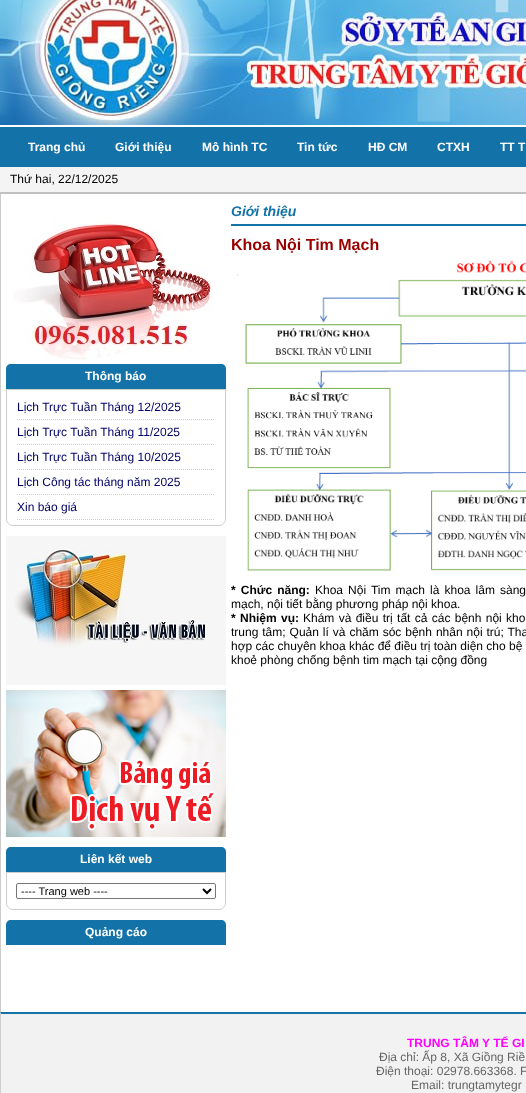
<svg xmlns="http://www.w3.org/2000/svg" width="526" height="1093" viewBox="0 0 526 1093">
  <rect width="100%" height="100%" fill="rgb(255,255,255)"/>
  <image x="0" y="0" width="526" height="125" href="pic1.png"/>
  <rect x="0" y="127" width="526" height="40" fill="rgb(19,114,168)"/>
  <g font-family="Liberation Sans" font-size="12" font-weight="bold" fill="rgb(255,255,255)">
    <text x="28" y="151">Trang chủ</text>
    <text x="115" y="151">Giới thiệu</text>
    <text x="202" y="151">Mô hình TC</text>
    <text x="297" y="151">Tin tức</text>
    <text x="368" y="151">HĐ CM</text>
    <text x="437" y="151">CTXH</text>
    <text x="500" y="151">TT T</text>
  </g>
  <rect x="0" y="167" width="526" height="25" fill="rgb(244,244,244)"/>
  <rect x="0" y="192" width="526" height="2" fill="rgb(192,192,192)"/>
  <text x="10" y="183" font-family="Liberation Sans" font-size="12" fill="rgb(0,0,0)">Thứ hai, 22/12/2025</text>
  <rect x="0" y="194" width="1" height="818" fill="rgb(204,204,204)"/>
  <image x="14" y="218" width="200" height="142" href="pic2.png"/>
  <path d="M11 364H221C224 364 226 366 226 369V389H6V369C6 366 8 364 11 364Z" fill="rgb(19,114,168)"/>
  <text x="85" y="380" font-family="Liberation Sans" font-size="12" font-weight="bold" fill="rgb(255,255,255)">Thông báo</text>
  <path d="M6.5 389.5H225.5V519C225.5 522.5 222.5 525.5 219 525.5H13C9.5 525.5 6.5 522.5 6.5 519Z" fill="none" stroke="rgb(204,204,204)"/>
  <path d="M17 419.5H215" fill="none" stroke="rgb(204,204,204)" stroke-dasharray="1 1"/>
  <text x="17" y="411" font-family="Liberation Sans" font-size="12" fill="rgb(0,0,102)">Lịch Trực Tuần Tháng 12/2025</text>
  <path d="M17 444.5H215" fill="none" stroke="rgb(204,204,204)" stroke-dasharray="1 1"/>
  <text x="17" y="436" font-family="Liberation Sans" font-size="12" fill="rgb(0,0,102)">Lịch Trực Tuần Tháng 11/2025</text>
  <path d="M17 469.5H215" fill="none" stroke="rgb(204,204,204)" stroke-dasharray="1 1"/>
  <text x="17" y="461" font-family="Liberation Sans" font-size="12" fill="rgb(0,0,102)">Lịch Trực Tuần Tháng 10/2025</text>
  <path d="M17 494.5H215" fill="none" stroke="rgb(204,204,204)" stroke-dasharray="1 1"/>
  <text x="17" y="486" font-family="Liberation Sans" font-size="12" fill="rgb(0,0,102)">Lịch Công tác tháng năm 2025</text>
  <path d="M17 519.5H215" fill="none" stroke="rgb(204,204,204)" stroke-dasharray="1 1"/>
  <text x="17" y="511" font-family="Liberation Sans" font-size="12" fill="rgb(0,0,102)">Xin báo giá</text>
  <image x="6" y="536" width="220" height="149" href="pic3.png"/>
  <image x="6" y="690" width="220" height="147" href="pic4.png"/>
  <path d="M11 847H221C224 847 226 849 226 852V872H6V852C6 849 8 847 11 847Z" fill="rgb(19,114,168)"/>
  <text x="80" y="863" font-family="Liberation Sans" font-size="12" font-weight="bold" fill="rgb(255,255,255)">Liên kết web</text>
  <path d="M6.5 872.5H225.5V903C225.5 906.5 222.5 909.5 219 909.5H13C9.5 909.5 6.5 906.5 6.5 903Z" fill="none" stroke="rgb(204,204,204)"/>
  <rect x="16.5" y="883.5" width="199" height="15" rx="1.5" fill="none" stroke="rgb(118,118,118)"/>
  <path d="M203 889L207 893L211 889" fill="none" stroke="rgb(0,0,0)" stroke-width="2"/>
  <text x="21" y="895" font-family="Liberation Sans" font-size="11" fill="rgb(0,0,0)">---- Trang web ----</text>
  <path d="M11 920H221C224 920 226 922 226 925V945H6V925C6 922 8 920 11 920Z" fill="rgb(19,114,168)"/>
  <text x="85" y="936" font-family="Liberation Sans" font-size="12" font-weight="bold" fill="rgb(255,255,255)">Quảng cáo</text>
  <rect x="231" y="224" width="295" height="2" fill="rgb(19,114,168)"/>
  <text x="231" y="216" font-family="Liberation Sans" font-size="14" font-weight="bold" font-style="italic" fill="rgb(19,114,168)">Giới thiệu</text>
  <text x="231" y="250" font-family="Liberation Sans" font-size="16" font-weight="bold" fill="rgb(153,0,0)">Khoa Nội Tim Mạch</text>
  <image x="237" y="260" width="289" height="311" href="pic5.png"/>
  <text x="231" y="594" word-spacing="1.75" font-family="Liberation Sans" font-size="12" font-weight="bold" fill="rgb(0,0,0)">* Chức năng:</text>
  <g font-family="Liberation Sans" font-size="12" fill="rgb(0,0,0)">
    <text x="315" y="594" word-spacing="1.75">Khoa Nội Tim mạch là khoa lâm sàng</text>
    <text x="231" y="608">mạch, nội tiết bằng phương pháp nội khoa.</text>
  </g>
  <text x="231" y="622" word-spacing="1" font-family="Liberation Sans" font-size="12" font-weight="bold" fill="rgb(0,0,0)">* Nhiệm vụ:</text>
  <g font-family="Liberation Sans" font-size="12" fill="rgb(0,0,0)">
    <text x="303" y="622" word-spacing="1">Khám và điều trị tất cả các bệnh nội kho</text>
    <text>
      <tspan x="231" y="636" word-spacing="0.6">trung tâm; Quản lí và chăm sóc bệnh nhân nội trú; Tha</tspan>
      <tspan x="231" y="650">hợp các chuyên khoa khác để điều trị toàn diện cho bệ</tspan>
      <tspan x="231" y="664">khoẻ phòng chống bệnh tim mạch tại cộng đồng</tspan>
    </text>
  </g>
  <rect x="1" y="1014" width="525" height="79" fill="rgb(242,242,242)"/>
  <path d="M0 1012H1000L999 1014H1Z" fill="rgb(19,114,168)"/>
  <path d="M0 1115V1012L1 1014V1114Z" fill="rgb(204,204,204)"/>
  <text x="407" y="1047" font-family="Liberation Sans" font-size="12" font-weight="bold" fill="rgb(255,0,255)">TRUNG TÂM Y TẾ GI</text>
  <g font-family="Liberation Sans" font-size="12" fill="rgb(102,102,102)">
    <text x="379" y="1061">Địa chỉ: Ấp 8, Xã Giồng Riề</text>
    <text x="376" y="1075">Điện thoại: 02978.663368. F</text>
    <text x="411" y="1089">Email: trungtamytegr</text>
  </g>
</svg>
